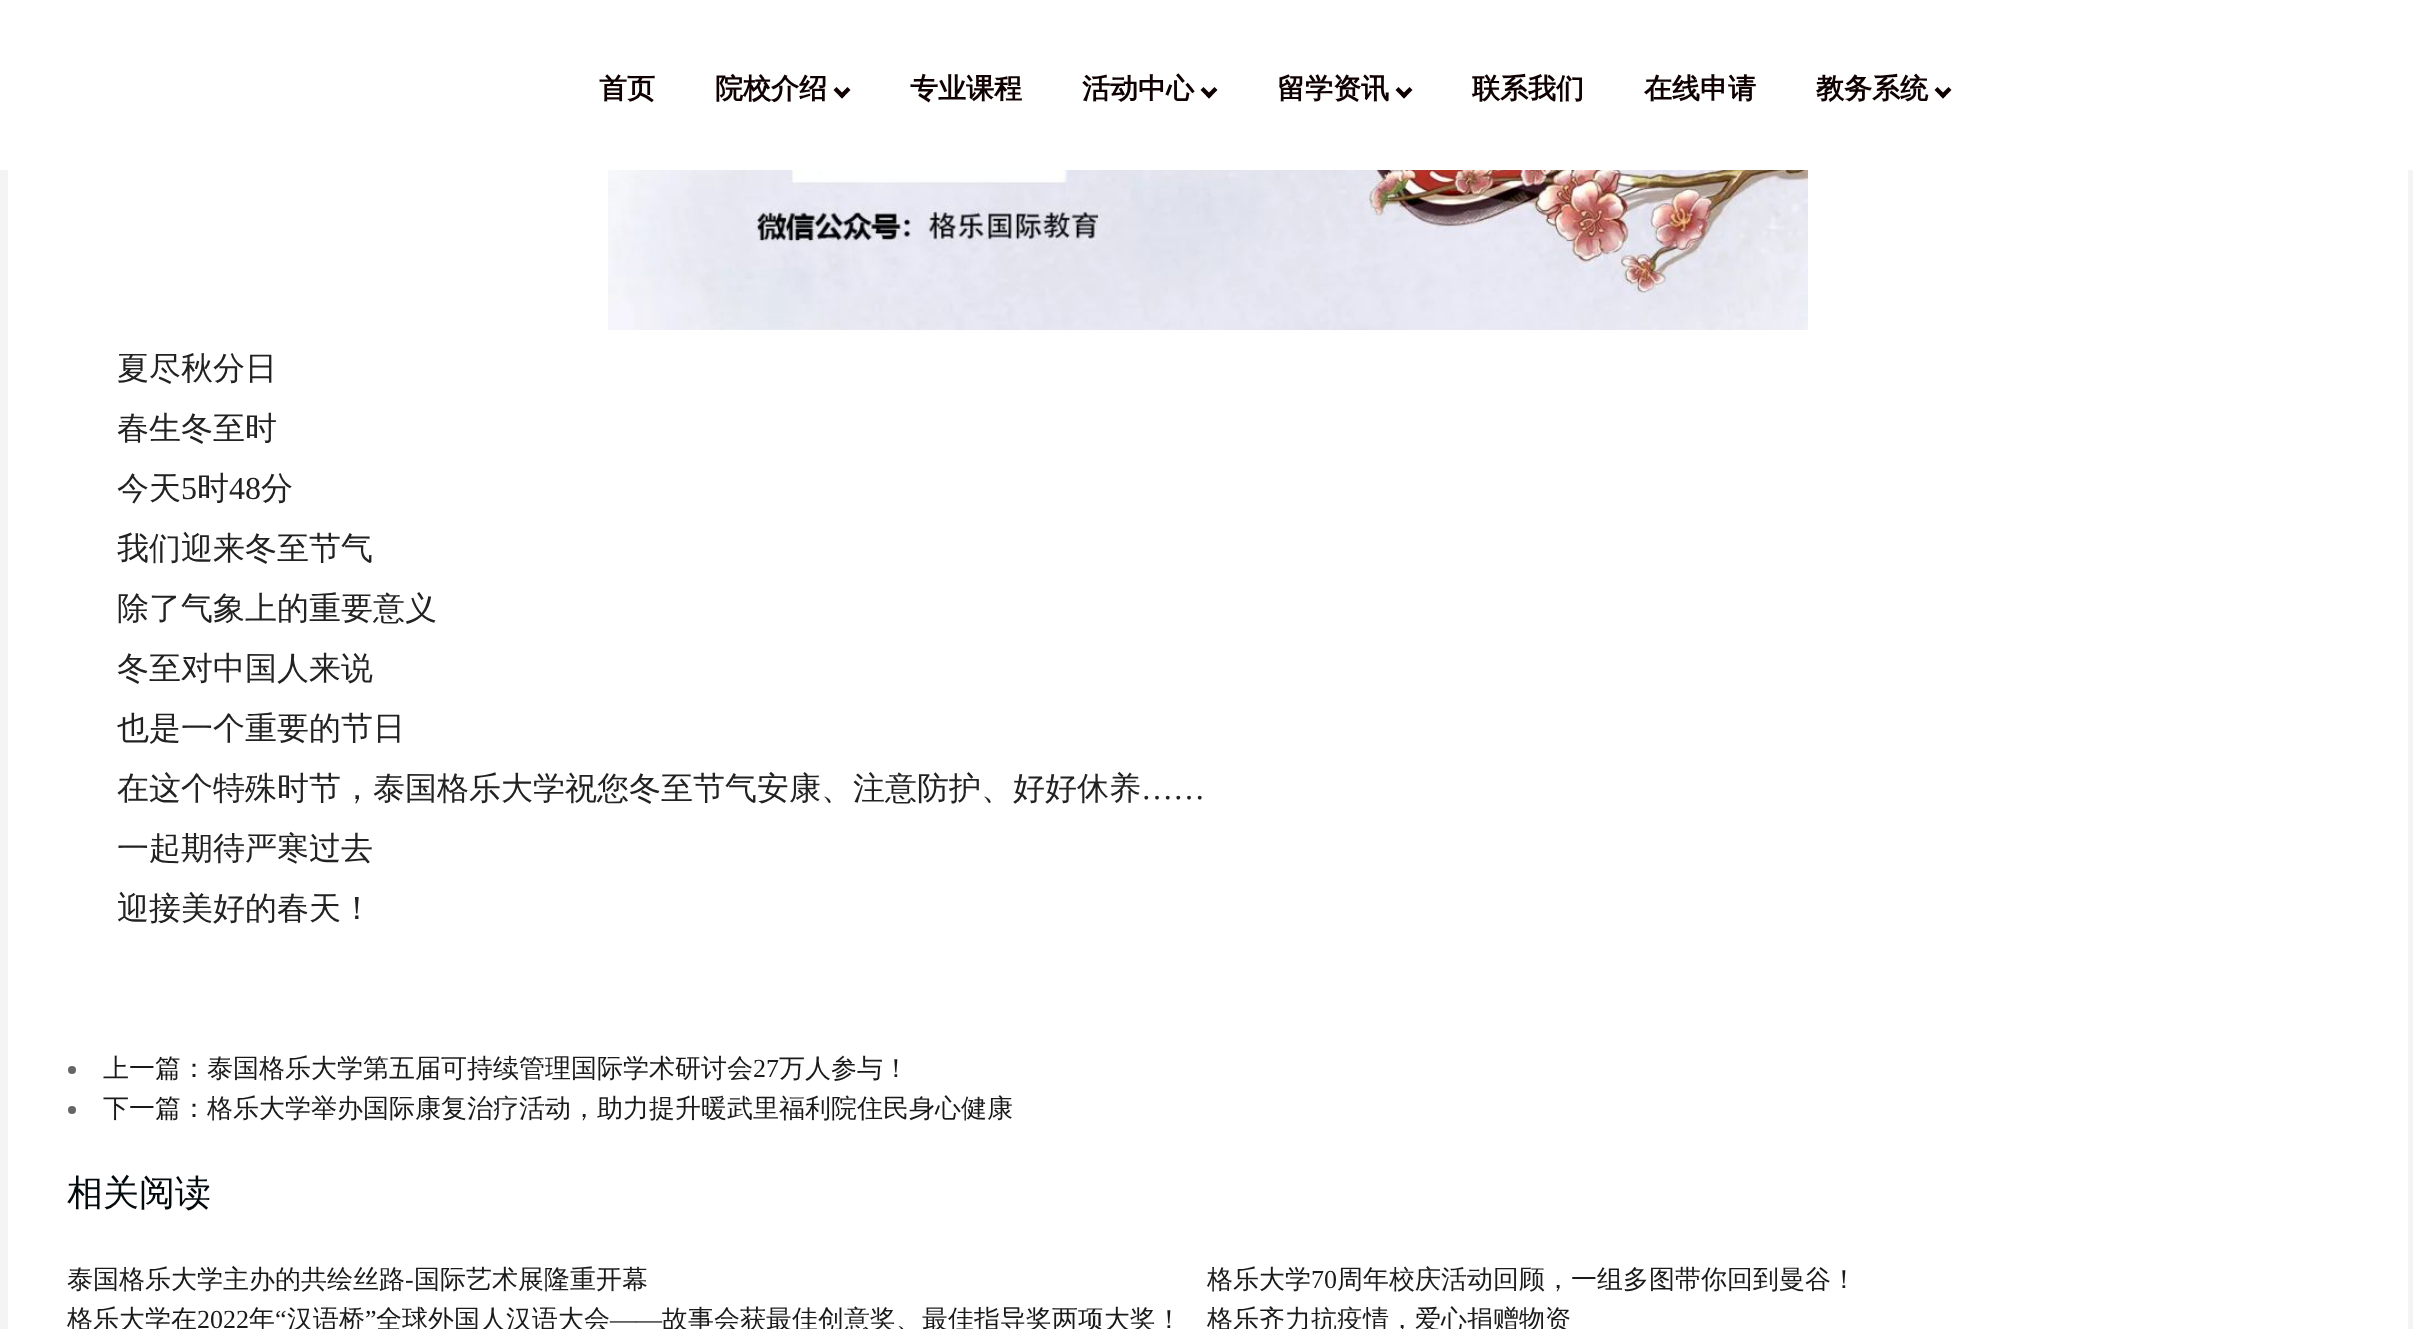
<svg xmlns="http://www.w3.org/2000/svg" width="2413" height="1329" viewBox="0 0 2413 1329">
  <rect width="100%" height="100%" fill="rgb(244,244,244)"/>
  <rect x="0" y="0" width="2413" height="170" fill="rgb(255,255,255)"/>
  <g font-family="WenQuanYi Zen Hei" font-size="28" font-weight="bold" fill="rgb(15,1,1)">
    <text x="599" y="98">首页</text>
    <text x="715" y="98">院校介绍</text>
  </g>
  <path d="M847.5 87L850.5 90L842 98.5L839 95.5Z" fill="rgb(15,1,1)"/>
  <path d="M836.5 87L845 95.5L842 98.5L833.5 90Z" fill="rgb(15,1,1)"/>
  <g font-family="WenQuanYi Zen Hei" font-size="28" font-weight="bold" fill="rgb(15,1,1)">
    <text x="910" y="98">专业课程</text>
    <text x="1082" y="98">活动中心</text>
  </g>
  <path d="M1214.5 87L1217.5 90L1209 98.5L1206 95.5Z" fill="rgb(15,1,1)"/>
  <path d="M1203.5 87L1212 95.5L1209 98.5L1200.5 90Z" fill="rgb(15,1,1)"/>
  <text x="1277" y="98" font-family="WenQuanYi Zen Hei" font-size="28" font-weight="bold" fill="rgb(15,1,1)">留学资讯</text>
  <path d="M1409.5 87L1412.5 90L1404 98.5L1401 95.5Z" fill="rgb(15,1,1)"/>
  <path d="M1398.5 87L1407 95.5L1404 98.5L1395.5 90Z" fill="rgb(15,1,1)"/>
  <g font-family="WenQuanYi Zen Hei" font-size="28" font-weight="bold" fill="rgb(15,1,1)">
    <text x="1472" y="98">联系我们</text>
    <text x="1644" y="98">在线申请</text>
    <text x="1816" y="98">教务系统</text>
  </g>
  <path d="M1948.5 87L1951.5 90L1943 98.5L1940 95.5Z" fill="rgb(15,1,1)"/>
  <path d="M1937.5 87L1946 95.5L1943 98.5L1934.5 90Z" fill="rgb(15,1,1)"/>
  <rect x="8" y="170" width="2400" height="1159" fill="rgb(255,255,255)"/>
  <image x="608" y="170" width="1200" height="160" href="pic1.png"/>
  <g font-family="WenQuanYi Zen Hei" font-size="32" font-weight="500" fill="rgb(34,34,34)">
    <text>
      <tspan x="117" y="379">夏尽秋分日</tspan>
      <tspan x="117" y="439">春生冬至时</tspan>
      <tspan x="117" y="499">今天</tspan>
    </text>
  </g>
  <text x="181" y="499" font-family="Liberation Serif" font-size="32" fill="rgb(34,34,34)">5</text>
  <text x="197" y="499" font-family="WenQuanYi Zen Hei" font-size="32" font-weight="500" fill="rgb(34,34,34)">时</text>
  <text x="229" y="499" font-family="Liberation Serif" font-size="32" fill="rgb(34,34,34)">48</text>
  <g font-family="WenQuanYi Zen Hei" font-size="32" font-weight="500" fill="rgb(34,34,34)">
    <text x="261" y="499">分</text>
    <text>
      <tspan x="117" y="559">我们迎来冬至节气</tspan>
      <tspan x="117" y="619">除了气象上的重要意义</tspan>
      <tspan x="117" y="679">冬至对中国人来说</tspan>
      <tspan x="117" y="739">也是一个重要的节日</tspan>
      <tspan x="117" y="799">在这个特殊时节，泰国格乐大学祝您冬至节气安康、注意防护、好好休养</tspan>
    </text>
  </g>
  <text x="1141" y="799" font-family="Liberation Serif" font-size="32" fill="rgb(34,34,34)">……</text>
  <g font-family="WenQuanYi Zen Hei" font-size="32" font-weight="500" fill="rgb(34,34,34)">
    <text>
      <tspan x="117" y="859">一起期待严寒过去</tspan>
      <tspan x="117" y="919">迎接美好的春天！</tspan>
    </text>
  </g>
  <circle cx="72" cy="1070" r="4" fill="rgb(101,101,101)"/>
  <text x="103" y="1077" font-family="WenQuanYi Zen Hei" font-size="26" font-weight="500" fill="rgb(27,26,26)">上一篇：泰国格乐大学第五届可持续管理国际学术研讨会</text>
  <text x="753" y="1077" font-family="Liberation Serif" font-size="26" fill="rgb(27,26,26)">27</text>
  <text x="779" y="1077" font-family="WenQuanYi Zen Hei" font-size="26" font-weight="500" fill="rgb(27,26,26)">万人参与！</text>
  <circle cx="72" cy="1110" r="4" fill="rgb(101,101,101)"/>
  <text x="103" y="1117" font-family="WenQuanYi Zen Hei" font-size="26" font-weight="500" fill="rgb(27,26,26)">下一篇：格乐大学举办国际康复治疗活动，助力提升暖武里福利院住民身心健康</text>
  <text x="67" y="1205" font-family="WenQuanYi Zen Hei" font-size="36" font-weight="500" fill="rgb(1,9,12)">相关阅读</text>
  <text x="67" y="1288" font-family="WenQuanYi Zen Hei" font-size="26" font-weight="500" fill="rgb(27,26,26)">泰国格乐大学主办的共绘丝路</text>
  <text x="405" y="1288" font-family="Liberation Serif" font-size="26" fill="rgb(27,26,26)">-</text>
  <g font-family="WenQuanYi Zen Hei" font-size="26" font-weight="500" fill="rgb(27,26,26)">
    <text x="414" y="1288">国际艺术展隆重开幕</text>
    <text x="1207" y="1288">格乐大学</text>
  </g>
  <text x="1311" y="1288" font-family="Liberation Serif" font-size="26" fill="rgb(27,26,26)">70</text>
  <g font-family="WenQuanYi Zen Hei" font-size="26" font-weight="500" fill="rgb(27,26,26)">
    <text x="1337" y="1288">周年校庆活动回顾，一组多图带你回到曼谷！</text>
    <text x="67" y="1328">格乐大学在</text>
  </g>
  <text x="197" y="1328" font-family="Liberation Serif" font-size="26" fill="rgb(27,26,26)">2022</text>
  <text x="249" y="1328" font-family="WenQuanYi Zen Hei" font-size="26" font-weight="500" fill="rgb(27,26,26)">年</text>
  <text x="275" y="1328" font-family="Liberation Serif" font-size="26" fill="rgb(27,26,26)">“</text>
  <text x="287" y="1328" font-family="WenQuanYi Zen Hei" font-size="26" font-weight="500" fill="rgb(27,26,26)">汉语桥</text>
  <text x="365" y="1328" font-family="Liberation Serif" font-size="26" fill="rgb(27,26,26)">”</text>
  <text x="376" y="1328" font-family="WenQuanYi Zen Hei" font-size="26" font-weight="500" fill="rgb(27,26,26)">全球外国人汉语大会</text>
  <text x="610" y="1328" font-family="Liberation Serif" font-size="26" fill="rgb(27,26,26)">——</text>
  <g font-family="WenQuanYi Zen Hei" font-size="26" font-weight="500" fill="rgb(27,26,26)">
    <text x="662" y="1328">故事会获最佳创意奖、最佳指导奖两项大奖！</text>
    <text x="1207" y="1328">格乐齐力抗疫情，爱心捐赠物资</text>
  </g>
</svg>
